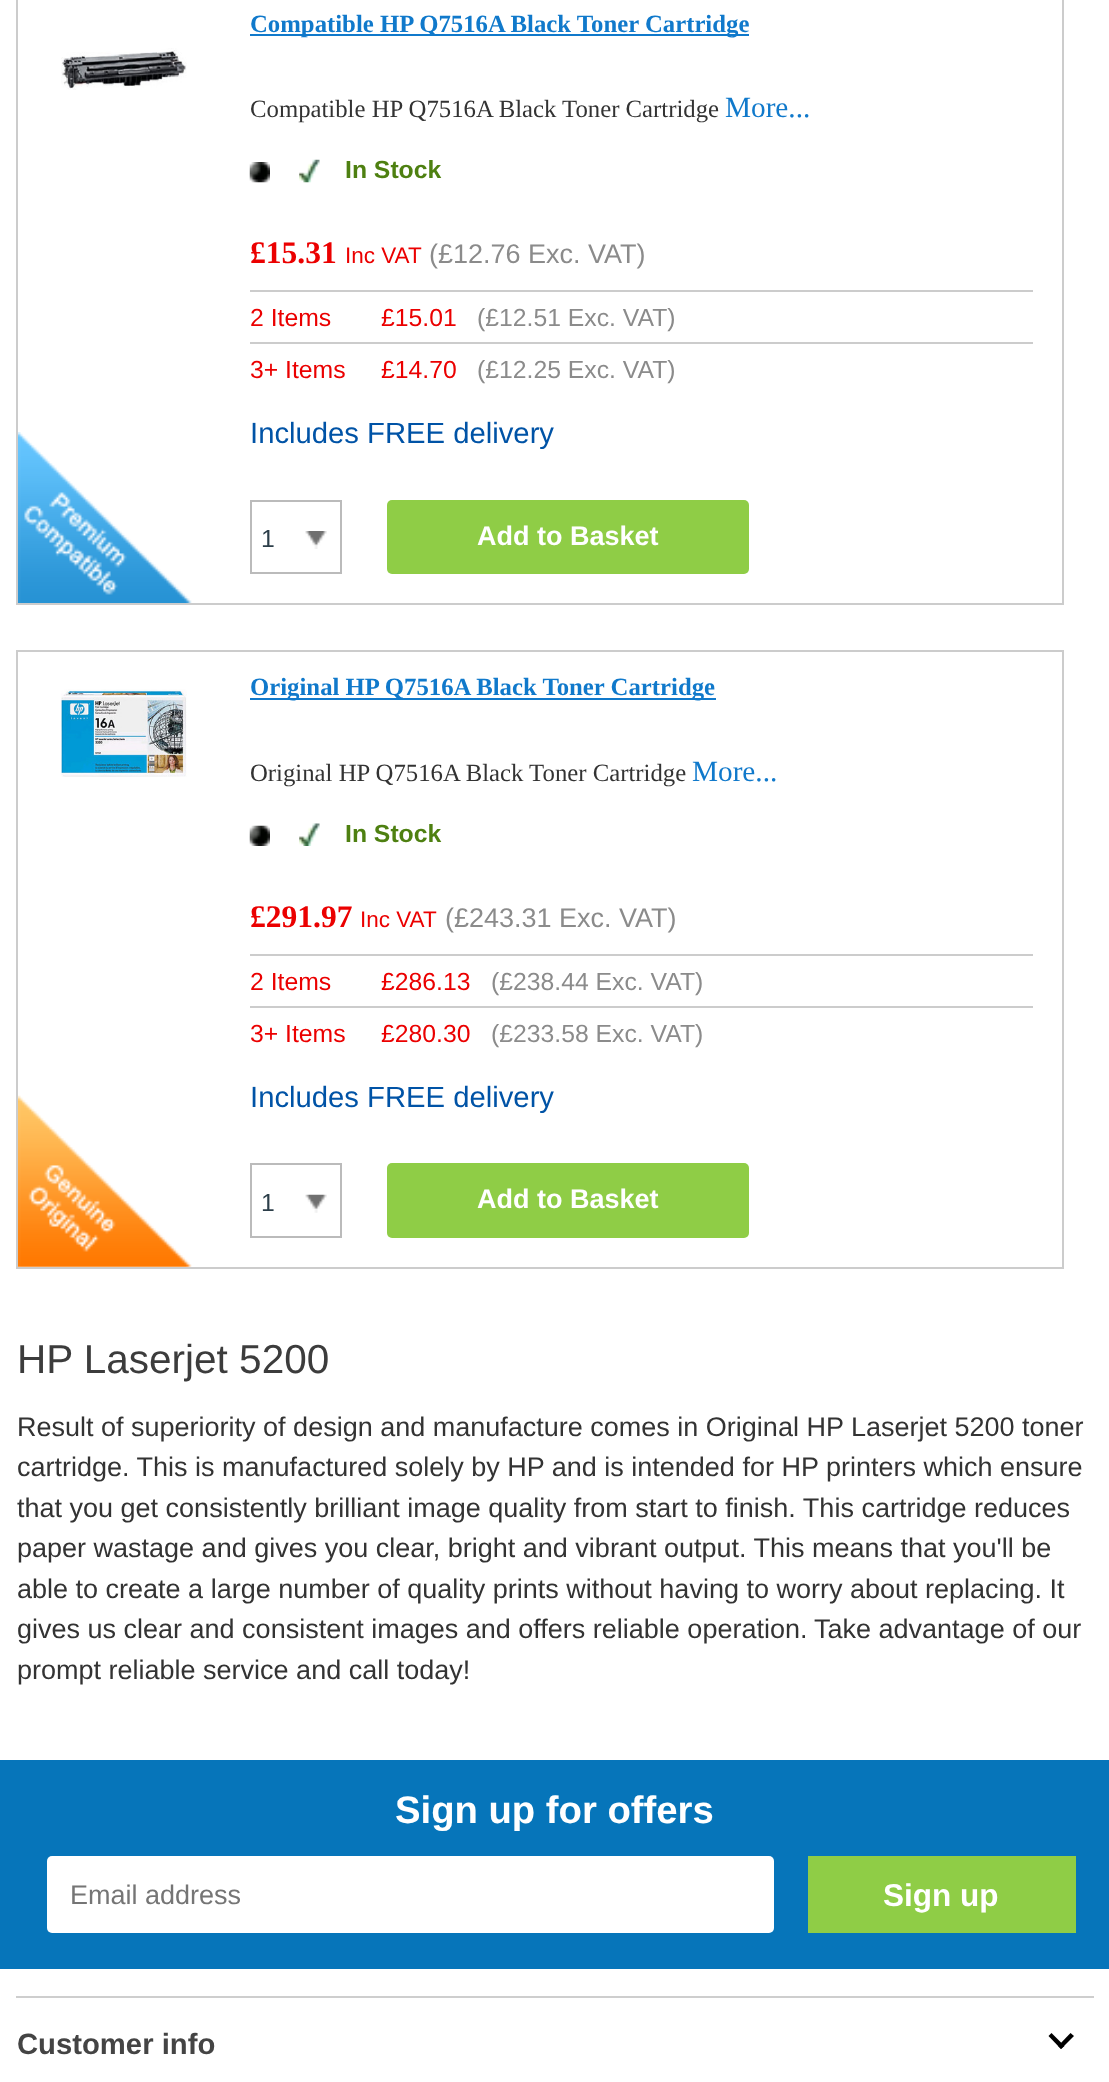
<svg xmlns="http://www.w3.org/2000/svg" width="1109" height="2082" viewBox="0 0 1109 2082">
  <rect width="100%" height="100%" fill="rgb(255,255,255)"/>
  <rect x="17" y="-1" width="1046" height="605" fill="none" stroke="rgb(204,204,204)" stroke-width="2"/>
  <image x="61" y="48" width="126" height="42" href="pic1.png"/>
  <rect x="250" y="34" width="499" height="2" fill="rgb(16,121,203)"/>
  <text x="250" y="32" font-family="Liberation Serif" font-size="24.75" font-weight="bold" fill="rgb(16,121,203)">Compatible HP Q7516A Black Toner Cartridge</text>
  <g font-family="Liberation Serif" font-size="24.75" fill="rgb(51,51,51)">
    <text x="250" y="117">Compatible HP Q7516A Black</text>
    <text x="562" y="117">Toner Cartridge</text>
  </g>
  <text x="725" y="117" font-family="Liberation Serif" font-size="29.25" fill="rgb(16,121,203)">More...</text>
  <image x="249" y="162" width="21" height="21" href="pic2.png"/>
  <image x="299" y="159" width="21" height="24" href="pic3.png"/>
  <text x="345" y="178" font-family="Liberation Sans" font-size="24.75" font-weight="bold" fill="rgb(78,128,17)">In Stock</text>
  <text x="250" y="263" font-family="Liberation Serif" font-size="31.5" font-weight="bold" fill="rgb(235,0,0)">£15.31</text>
  <text x="345" y="263" font-family="Liberation Sans" font-size="22.5" fill="rgb(235,0,0)">Inc VAT</text>
  <text x="429" y="263" font-family="Liberation Sans" font-size="27" fill="rgb(139,139,139)">(£12.76 Exc. VAT)</text>
  <rect x="250" y="290" width="783" height="2" fill="rgb(204,204,204)"/>
  <g font-family="Liberation Sans" font-size="24.75" fill="rgb(235,0,0)">
    <text x="250" y="326">2 Items</text>
    <text x="381" y="326">£15.01</text>
  </g>
  <text x="477" y="326" font-family="Liberation Sans" font-size="24.75" fill="rgb(139,139,139)">(£12.51 Exc. VAT)</text>
  <rect x="250" y="342" width="783" height="2" fill="rgb(204,204,204)"/>
  <g font-family="Liberation Sans" font-size="24.75" fill="rgb(235,0,0)">
    <text x="250" y="378">3+ Items</text>
    <text x="381" y="378">£14.70</text>
  </g>
  <text x="477" y="378" font-family="Liberation Sans" font-size="24.75" fill="rgb(139,139,139)">(£12.25 Exc. VAT)</text>
  <text x="250" y="443" font-family="Liberation Sans" font-size="29.25" fill="rgb(0,83,166)">Includes FREE delivery</text>
  <rect x="251" y="501" width="90" height="72" fill="none" stroke="rgb(187,187,187)" stroke-width="2"/>
  <image x="305" y="531" width="22" height="18" href="pic4.png"/>
  <text x="261" y="547" font-family="Liberation Sans" font-size="24.75" fill="rgb(44,62,73)">1</text>
  <rect x="387" y="500" width="362" height="74" rx="5" fill="rgb(143,205,70)"/>
  <text x="477" y="545" font-family="Liberation Sans" font-size="27" font-weight="bold" fill="rgb(255,255,255)">Add to Basket</text>
  <image x="18" y="432" width="174" height="171" href="pic5.png"/>
  <rect x="17" y="651" width="1046" height="617" fill="none" stroke="rgb(204,204,204)" stroke-width="2"/>
  <image x="60" y="689" width="127" height="88" href="pic6.png"/>
  <rect x="250" y="698" width="466" height="2" fill="rgb(16,121,203)"/>
  <text x="250" y="695" font-family="Liberation Serif" font-size="24.75" font-weight="bold" fill="rgb(16,121,203)">Original HP Q7516A Black Toner Cartridge</text>
  <text x="250" y="781" font-family="Liberation Serif" font-size="24.75" fill="rgb(51,51,51)">Original HP Q7516A Black Toner Cartridge</text>
  <text x="692" y="781" font-family="Liberation Serif" font-size="29.25" fill="rgb(16,121,203)">More...</text>
  <image x="249" y="825" width="21" height="21" href="pic7.png"/>
  <image x="299" y="823" width="21" height="23" href="pic8.png"/>
  <text x="345" y="842" font-family="Liberation Sans" font-size="24.75" font-weight="bold" fill="rgb(78,128,17)">In Stock</text>
  <text x="250" y="927" font-family="Liberation Serif" font-size="31.5" font-weight="bold" fill="rgb(235,0,0)">£291.97</text>
  <text x="360" y="927" font-family="Liberation Sans" font-size="22.5" fill="rgb(235,0,0)">Inc VAT</text>
  <text x="445" y="927" font-family="Liberation Sans" font-size="27" fill="rgb(139,139,139)">(£243.31 Exc. VAT)</text>
  <rect x="250" y="954" width="783" height="2" fill="rgb(204,204,204)"/>
  <g font-family="Liberation Sans" font-size="24.75" fill="rgb(235,0,0)">
    <text x="250" y="990">2 Items</text>
    <text x="381" y="990">£286.13</text>
  </g>
  <text x="491" y="990" font-family="Liberation Sans" font-size="24.75" fill="rgb(139,139,139)">(£238.44 Exc. VAT)</text>
  <rect x="250" y="1006" width="783" height="2" fill="rgb(204,204,204)"/>
  <g font-family="Liberation Sans" font-size="24.75" fill="rgb(235,0,0)">
    <text x="250" y="1042">3+ Items</text>
    <text x="381" y="1042">£280.30</text>
  </g>
  <text x="491" y="1042" font-family="Liberation Sans" font-size="24.75" fill="rgb(139,139,139)">(£233.58 Exc. VAT)</text>
  <text x="250" y="1107" font-family="Liberation Sans" font-size="29.25" fill="rgb(0,83,166)">Includes FREE delivery</text>
  <rect x="251" y="1164" width="90" height="73" fill="none" stroke="rgb(187,187,187)" stroke-width="2"/>
  <image x="305" y="1194" width="22" height="19" href="pic9.png"/>
  <text x="261" y="1211" font-family="Liberation Sans" font-size="24.75" fill="rgb(44,62,73)">1</text>
  <rect x="387" y="1163" width="362" height="75" rx="5" fill="rgb(143,205,70)"/>
  <text x="477" y="1208" font-family="Liberation Sans" font-size="27" font-weight="bold" fill="rgb(255,255,255)">Add to Basket</text>
  <image x="18" y="1095" width="174" height="172" href="pic10.png"/>
  <text x="17" y="1373" font-family="Liberation Sans" font-size="40.5" fill="rgb(60,60,60)">HP Laserjet 5200</text>
  <g font-family="Liberation Sans" font-size="27" fill="rgb(51,51,51)">
    <text>
      <tspan x="17" y="1436">Result of superiority of design and manufacture comes in Original HP Laserjet 5200 toner</tspan>
      <tspan x="17" y="1476">cartridge. This is manufactured solely by HP and is intended for HP printers which ensure</tspan>
      <tspan x="17" y="1517">that you get consistently brilliant image quality from start to finish. This cartridge reduces</tspan>
      <tspan x="17" y="1557">paper wastage and gives you clear, bright and vibrant output. This means that you'll be</tspan>
      <tspan x="17" y="1598">able to create a large number of quality prints without having to worry about replacing. It</tspan>
      <tspan x="17" y="1638">gives us clear and consistent images and offers reliable operation.</tspan>
    </text>
    <text x="814" y="1638">Take advantage of our</text>
    <text x="17" y="1679">prompt reliable service and call today!</text>
  </g>
  <rect x="0" y="1760" width="1109" height="209" fill="rgb(6,117,186)"/>
  <text x="395" y="1823" font-family="Liberation Sans" font-size="38.25" font-weight="bold" fill="rgb(255,255,255)">Sign up for offers</text>
  <rect x="47" y="1856" width="727" height="77" rx="5" fill="rgb(255,255,255)"/>
  <text x="70" y="1904" font-family="Liberation Sans" font-size="27" fill="rgb(117,117,117)">Email address</text>
  <rect x="808" y="1856" width="268" height="77" fill="rgb(143,205,70)"/>
  <text x="883" y="1906" font-family="Liberation Sans" font-size="31.5" font-weight="bold" fill="rgb(255,255,255)">Sign up</text>
  <rect x="16" y="1996" width="1078" height="2" fill="rgb(206,206,206)"/>
  <text x="17" y="2054" font-family="Liberation Sans" font-size="29.25" font-weight="bold" fill="rgb(68,68,68)">Customer info</text>
  <path d="M1070.5 2033L1074 2036L1061 2049L1058 2046Z" fill="rgb(0,0,0)"/>
  <path d="M1051.5 2033L1064.5 2046L1061 2049L1048.5 2036Z" fill="rgb(0,0,0)"/>
</svg>
